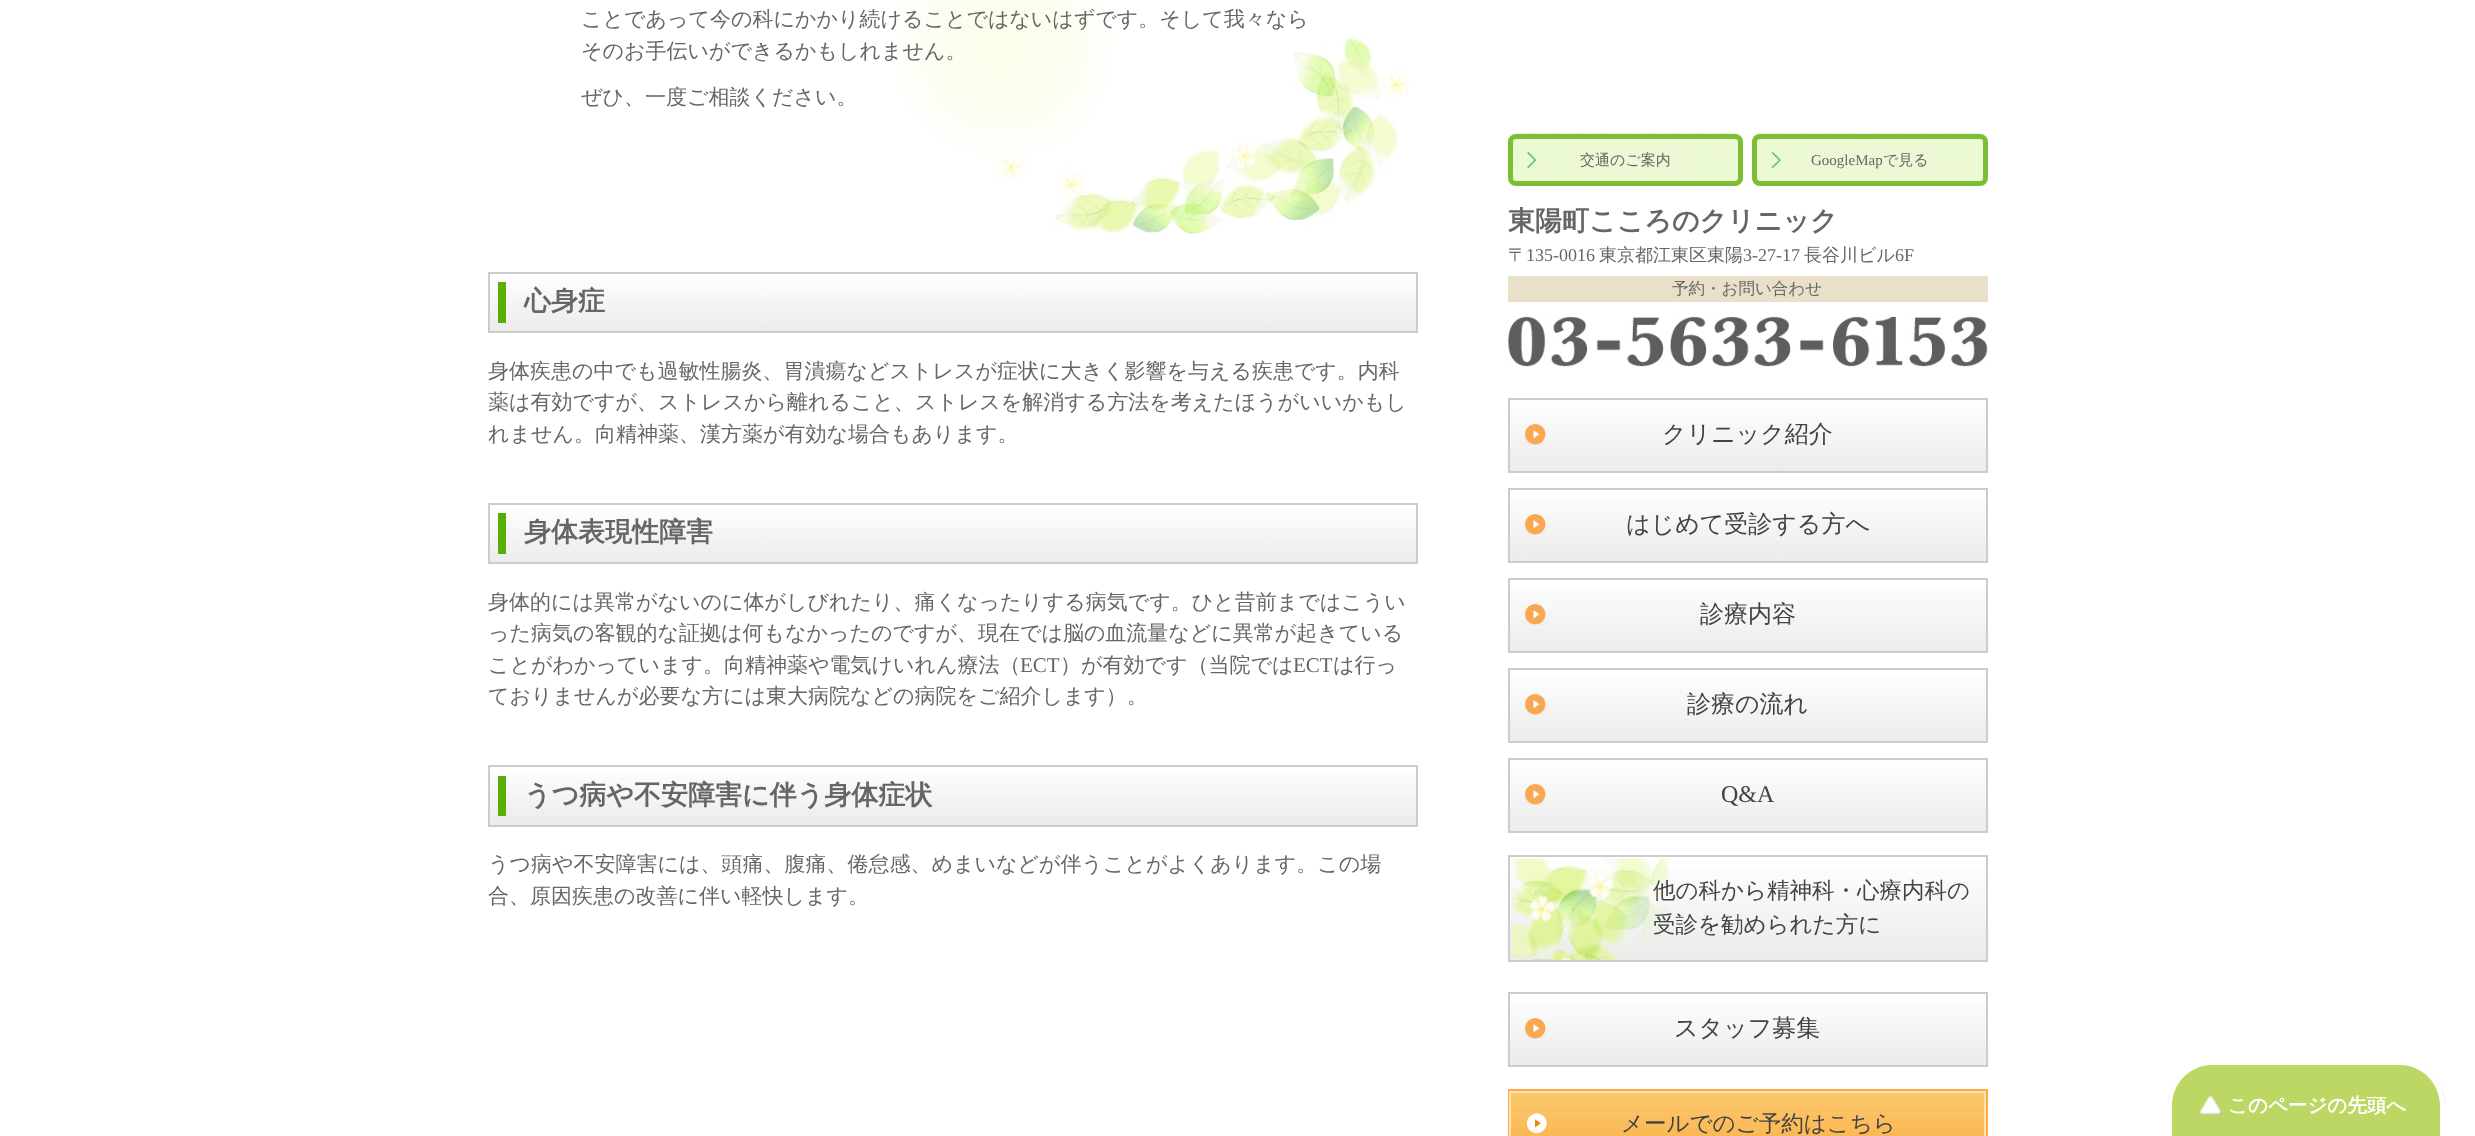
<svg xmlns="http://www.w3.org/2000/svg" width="2475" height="1136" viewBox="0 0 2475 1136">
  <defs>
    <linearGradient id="g1" gradientUnits="userSpaceOnUse" x1="953" y1="273" x2="953" y2="332"><stop offset="0" stop-color="rgb(255,255,255)"/><stop offset="1" stop-color="rgb(235,235,235)"/></linearGradient>
    <linearGradient id="g2" gradientUnits="userSpaceOnUse" x1="953" y1="504" x2="953" y2="563"><stop offset="0" stop-color="rgb(255,255,255)"/><stop offset="1" stop-color="rgb(235,235,235)"/></linearGradient>
    <linearGradient id="g3" gradientUnits="userSpaceOnUse" x1="953" y1="766" x2="953" y2="825"><stop offset="0" stop-color="rgb(255,255,255)"/><stop offset="1" stop-color="rgb(235,235,235)"/></linearGradient>
    <linearGradient id="g4" gradientUnits="userSpaceOnUse" x1="1748" y1="398" x2="1748" y2="473"><stop offset="0" stop-color="rgb(255,255,255)"/><stop offset="1" stop-color="rgb(235,235,235)"/></linearGradient>
    <linearGradient id="g5" gradientUnits="userSpaceOnUse" x1="1748" y1="488" x2="1748" y2="563"><stop offset="0" stop-color="rgb(255,255,255)"/><stop offset="1" stop-color="rgb(235,235,235)"/></linearGradient>
    <linearGradient id="g6" gradientUnits="userSpaceOnUse" x1="1748" y1="578" x2="1748" y2="653"><stop offset="0" stop-color="rgb(255,255,255)"/><stop offset="1" stop-color="rgb(235,235,235)"/></linearGradient>
    <linearGradient id="g7" gradientUnits="userSpaceOnUse" x1="1748" y1="668" x2="1748" y2="743"><stop offset="0" stop-color="rgb(255,255,255)"/><stop offset="1" stop-color="rgb(235,235,235)"/></linearGradient>
    <linearGradient id="g8" gradientUnits="userSpaceOnUse" x1="1748" y1="758" x2="1748" y2="833"><stop offset="0" stop-color="rgb(255,255,255)"/><stop offset="1" stop-color="rgb(235,235,235)"/></linearGradient>
    <linearGradient id="g9" gradientUnits="userSpaceOnUse" x1="1748" y1="855" x2="1748" y2="962"><stop offset="0" stop-color="rgb(255,255,255)"/><stop offset="1" stop-color="rgb(235,235,235)"/></linearGradient>
    <linearGradient id="g10" gradientUnits="userSpaceOnUse" x1="1748" y1="992" x2="1748" y2="1067"><stop offset="0" stop-color="rgb(255,255,255)"/><stop offset="1" stop-color="rgb(235,235,235)"/></linearGradient>
    <linearGradient id="g11" gradientUnits="userSpaceOnUse" x1="1748" y1="1091" x2="1748" y2="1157"><stop offset="0" stop-color="rgb(251,201,112)"/><stop offset="1" stop-color="rgb(251,177,71)"/></linearGradient>
  </defs>
  <rect width="100%" height="100%" fill="rgb(255,255,255)"/>
  <image x="896" y="0" width="513" height="234" href="pic1.png"/>
  <g font-family="WenQuanYi Zen Hei" font-size="21" font-weight="500" fill="rgb(102,102,102)">
    <text>
      <tspan x="581" y="26">ことであって今の科にかかり続けることではないはずです。そして我々なら</tspan>
      <tspan x="581" y="58">そのお手伝いができるかもしれません。</tspan>
    </text>
    <text x="581" y="104">ぜひ、一度ご相談ください。</text>
  </g>
  <rect x="490" y="280" width="926" height="51" fill="url(#g1)"/>
  <rect x="489" y="273" width="928" height="59" fill="none" stroke="rgb(204,204,204)" stroke-width="2"/>
  <rect x="498" y="282" width="8" height="41" fill="rgb(90,174,8)"/>
  <text x="524" y="310" font-family="WenQuanYi Zen Hei" font-size="27" font-weight="bold" fill="rgb(102,102,102)">心身症</text>
  <g font-family="WenQuanYi Zen Hei" font-size="21" font-weight="500" fill="rgb(102,102,102)">
    <text>
      <tspan x="488" y="378">身体疾患の中でも過敏性腸炎、胃潰瘍などストレスが症状に大きく影響を与える疾患です。内科</tspan>
      <tspan x="488" y="409">薬は有効ですが、ストレスから離れること、ストレスを解消する方法を考えたほうがいいかもし</tspan>
      <tspan x="488" y="441">れません。向精神薬、漢方薬が有効な場合もあります。</tspan>
    </text>
  </g>
  <rect x="490" y="511" width="926" height="51" fill="url(#g2)"/>
  <rect x="489" y="504" width="928" height="59" fill="none" stroke="rgb(204,204,204)" stroke-width="2"/>
  <rect x="498" y="513" width="8" height="41" fill="rgb(90,174,8)"/>
  <text x="524" y="541" font-family="WenQuanYi Zen Hei" font-size="27" font-weight="bold" fill="rgb(102,102,102)">身体表現性障害</text>
  <g font-family="WenQuanYi Zen Hei" font-size="21" font-weight="500" fill="rgb(102,102,102)">
    <text>
      <tspan x="488" y="609">身体的には異常がないのに体がしびれたり、痛くなったりする病気です。ひと昔前まではこうい</tspan>
      <tspan x="488" y="640">った病気の客観的な証拠は何もなかったのですが、現在では脳の血流量などに異常が起きている</tspan>
      <tspan x="488" y="672">ことがわかっています。向精神薬や電気けいれん療法（</tspan>
    </text>
  </g>
  <text x="1020" y="672" font-family="Liberation Serif" font-size="21" fill="rgb(102,102,102)">ECT</text>
  <text x="1060" y="672" font-family="WenQuanYi Zen Hei" font-size="21" font-weight="500" fill="rgb(102,102,102)">）が有効です（当院では</text>
  <text x="1293" y="672" font-family="Liberation Serif" font-size="21" fill="rgb(102,102,102)">ECT</text>
  <g font-family="WenQuanYi Zen Hei" font-size="21" font-weight="500" fill="rgb(102,102,102)">
    <text x="1333" y="672">は行っ</text>
    <text x="488" y="703">ておりませんが必要な方には東大病院などの病院をご紹介します）。</text>
  </g>
  <rect x="490" y="773" width="926" height="52" fill="url(#g3)"/>
  <rect x="489" y="766" width="928" height="60" fill="none" stroke="rgb(204,204,204)" stroke-width="2"/>
  <rect x="498" y="776" width="8" height="40" fill="rgb(90,174,8)"/>
  <text x="524" y="804" font-family="WenQuanYi Zen Hei" font-size="27" font-weight="bold" fill="rgb(102,102,102)">うつ病や不安障害に伴う身体症状</text>
  <g font-family="WenQuanYi Zen Hei" font-size="21" font-weight="500" fill="rgb(102,102,102)">
    <text>
      <tspan x="488" y="871">うつ病や不安障害には、頭痛、腹痛、倦怠感、めまいなどが伴うことがよくあります。この場</tspan>
      <tspan x="488" y="903">合、原因疾患の改善に伴い軽快します。</tspan>
    </text>
  </g>
  <image x="1507" y="133" width="236" height="53" href="pic2.png"/>
  <rect x="1510.5" y="136.5" width="230" height="47" rx="5.5" fill="none" stroke="rgb(123,190,53)" stroke-width="5"/>
  <image x="1527" y="152" width="9" height="17" href="pic3.png"/>
  <text x="1580" y="165" font-family="WenQuanYi Zen Hei" font-size="15" font-weight="500" fill="rgb(102,102,102)">交通のご案内</text>
  <image x="1752" y="133" width="236" height="53" href="pic4.png"/>
  <rect x="1754.5" y="136.5" width="231" height="47" rx="5.5" fill="none" stroke="rgb(123,190,53)" stroke-width="5"/>
  <image x="1771" y="152" width="10" height="17" href="pic5.png"/>
  <text x="1811" y="165" font-family="Liberation Serif" font-size="15" fill="rgb(102,102,102)">GoogleMap</text>
  <text x="1883" y="165" font-family="WenQuanYi Zen Hei" font-size="15" font-weight="500" fill="rgb(102,102,102)">で見る</text>
  <text x="1508" y="230" font-family="WenQuanYi Zen Hei" font-size="27" font-weight="bold" fill="rgb(102,102,102)">東陽町こころのクリニック</text>
  <text x="1508" y="261" font-family="WenQuanYi Zen Hei" font-size="18" font-weight="500" fill="rgb(102,102,102)">〒</text>
  <text x="1526" y="261" font-family="Liberation Serif" font-size="18" fill="rgb(102,102,102)">135-0016</text>
  <text x="1599" y="261" font-family="WenQuanYi Zen Hei" font-size="18" font-weight="500" fill="rgb(102,102,102)">東京都江東区東陽</text>
  <text x="1743" y="261" font-family="Liberation Serif" font-size="18" fill="rgb(102,102,102)">3-27-17</text>
  <text x="1804" y="261" font-family="WenQuanYi Zen Hei" font-size="18" font-weight="500" fill="rgb(102,102,102)">長谷川ビル</text>
  <text x="1895" y="261" font-family="Liberation Serif" font-size="18" fill="rgb(102,102,102)">6F</text>
  <rect x="1508" y="276" width="480" height="26" fill="rgb(232,224,200)"/>
  <text x="1672" y="294" font-family="WenQuanYi Zen Hei" font-size="16.5" font-weight="500" fill="rgb(102,102,102)">予約・お問い合わせ</text>
  <image x="1508" y="316" width="480" height="51" href="pic6.png"/>
  <rect x="1510" y="407" width="476" height="64" fill="url(#g4)"/>
  <image x="1524" y="424" width="23" height="21" href="pic7.png"/>
  <rect x="1509" y="399" width="478" height="73" fill="none" stroke="rgb(204,204,204)" stroke-width="2"/>
  <text x="1662" y="442" font-family="WenQuanYi Zen Hei" font-size="24" font-weight="500" fill="rgb(67,67,67)">クリニック紹介</text>
  <rect x="1510" y="497" width="476" height="64" fill="url(#g5)"/>
  <image x="1524" y="514" width="23" height="21" href="pic7.png"/>
  <rect x="1509" y="489" width="478" height="73" fill="none" stroke="rgb(204,204,204)" stroke-width="2"/>
  <text x="1626" y="532" font-family="WenQuanYi Zen Hei" font-size="24" font-weight="500" fill="rgb(67,67,67)">はじめて受診する方へ</text>
  <rect x="1510" y="587" width="476" height="64" fill="url(#g6)"/>
  <image x="1524" y="604" width="23" height="21" href="pic7.png"/>
  <rect x="1509" y="579" width="478" height="73" fill="none" stroke="rgb(204,204,204)" stroke-width="2"/>
  <text x="1700" y="622" font-family="WenQuanYi Zen Hei" font-size="24" font-weight="500" fill="rgb(67,67,67)">診療内容</text>
  <rect x="1510" y="677" width="476" height="64" fill="url(#g7)"/>
  <image x="1524" y="694" width="23" height="21" href="pic7.png"/>
  <rect x="1509" y="669" width="478" height="73" fill="none" stroke="rgb(204,204,204)" stroke-width="2"/>
  <text x="1687" y="712" font-family="WenQuanYi Zen Hei" font-size="24" font-weight="500" fill="rgb(67,67,67)">診療の流れ</text>
  <rect x="1510" y="767" width="476" height="64" fill="url(#g8)"/>
  <image x="1524" y="784" width="23" height="21" href="pic7.png"/>
  <rect x="1509" y="759" width="478" height="73" fill="none" stroke="rgb(204,204,204)" stroke-width="2"/>
  <text x="1721" y="802" font-family="Liberation Serif" font-size="24" fill="rgb(67,67,67)">Q&amp;A</text>
  <rect x="1510" y="868" width="476" height="92" fill="url(#g9)"/>
  <image x="1511" y="858" width="158" height="102" href="pic8.png"/>
  <rect x="1509" y="856" width="478" height="105" fill="none" stroke="rgb(204,204,204)" stroke-width="2"/>
  <g font-family="WenQuanYi Zen Hei" font-size="22.5" font-weight="500" fill="rgb(67,67,67)">
    <text>
      <tspan x="1653" y="898">他の科から精神科・心療内科の</tspan>
      <tspan x="1653" y="932">受診を勧められた方に</tspan>
    </text>
  </g>
  <rect x="1510" y="1001" width="476" height="64" fill="url(#g10)"/>
  <image x="1524" y="1018" width="23" height="21" href="pic7.png"/>
  <rect x="1509" y="993" width="478" height="73" fill="none" stroke="rgb(204,204,204)" stroke-width="2"/>
  <text x="1674" y="1036" font-family="WenQuanYi Zen Hei" font-size="24" font-weight="500" fill="rgb(67,67,67)">スタッフ募集</text>
  <rect x="1511" y="1093" width="473" height="43" fill="url(#g11)"/>
  <rect x="1509" y="1090" width="478" height="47" fill="none" stroke="rgb(255,167,73)" stroke-width="2"/>
  <image x="1525" y="1112" width="23" height="22" href="pic9.png"/>
  <rect x="1510" y="1092" width="475" height="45" fill="none" stroke="rgb(255,227,178)" stroke-width="2"/>
  <text x="1621" y="1131" font-family="WenQuanYi Zen Hei" font-size="22.5" font-weight="500" fill="rgb(67,67,67)">メールでのご予約はこちら</text>
  <path d="M2213 1061H2400C2425 1061 2445 1081 2445 1106V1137H2168V1106C2168 1081 2188 1061 2213 1061Z" fill="rgb(188,215,100)"/>
  <image x="2200" y="1096" width="22" height="19" href="pic10.png"/>
  <path d="M2212 1060H2400C2425 1060 2445 1081 2445 1106V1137H2168V1106C2168 1081 2188 1060 2212 1060ZM2212 1065H2400C2422 1065 2440 1083 2440 1106V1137H2172V1106C2172 1083 2190 1065 2212 1065Z" fill="rgb(255,255,255)" fill-rule="evenodd"/>
  <text x="2228" y="1112" font-family="WenQuanYi Zen Hei" font-size="19.5" font-weight="bold" fill="rgb(255,255,255)">このページの先頭へ</text>
</svg>
